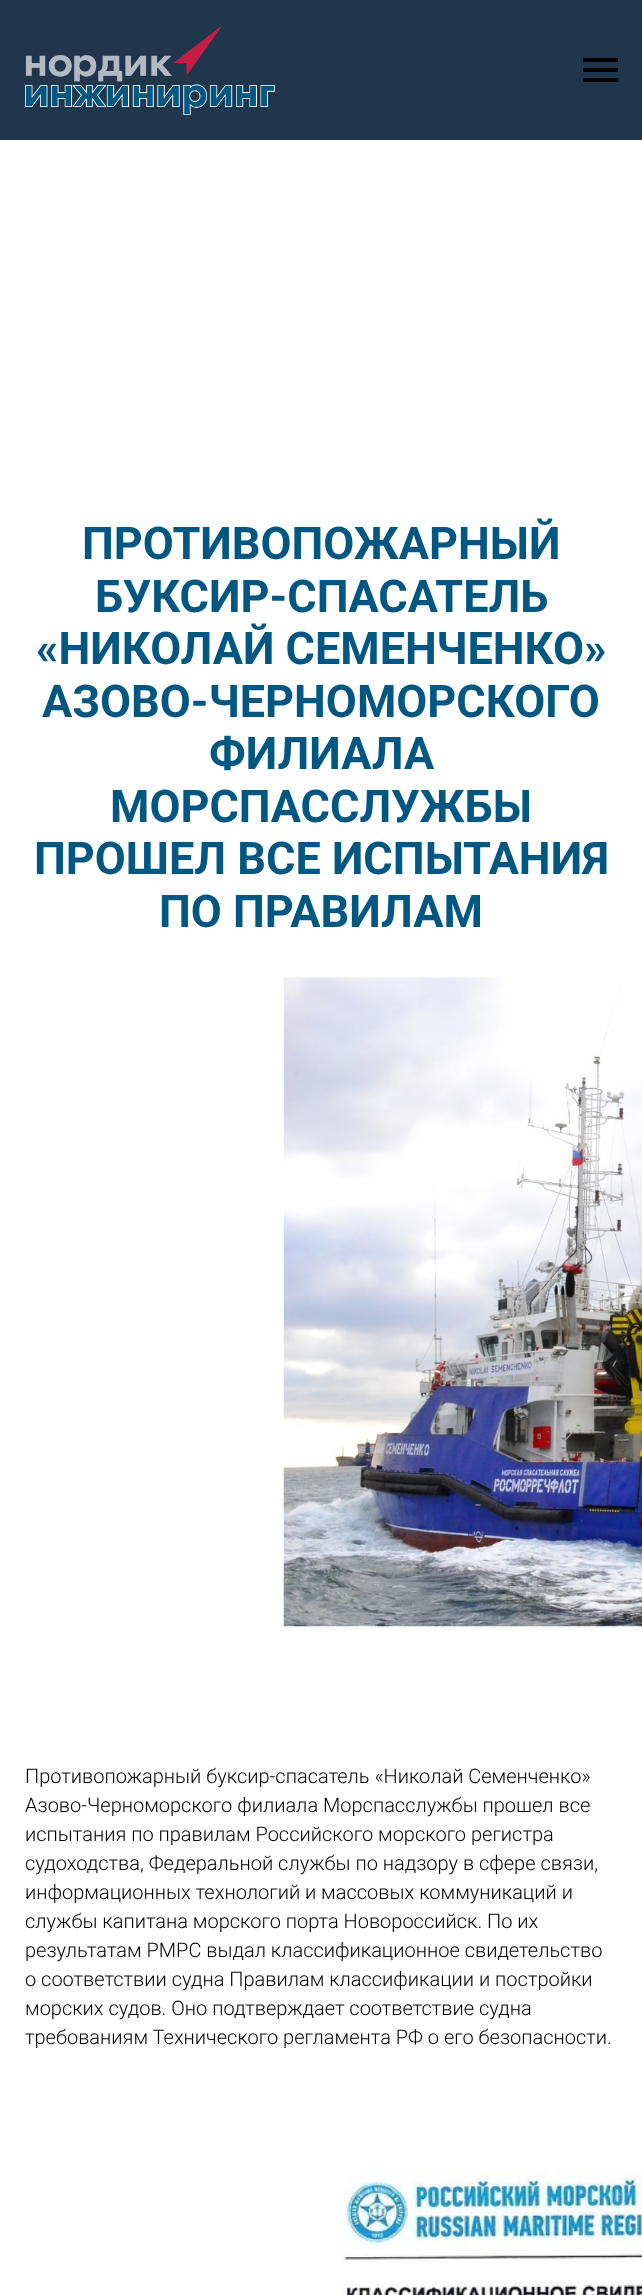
<svg xmlns="http://www.w3.org/2000/svg" width="642" height="2295" viewBox="0 0 642 2295">
  <rect width="100%" height="100%" fill="rgb(255,255,255)"/>
  <rect x="0" y="0" width="642" height="140" fill="rgb(32,54,77)"/>
  <image x="25" y="25" width="250" height="90" href="pic1.png"/>
  <rect x="583" y="58" width="35" height="4" fill="rgb(0,0,0)"/>
  <rect x="583" y="68" width="35" height="4" fill="rgb(0,0,0)"/>
  <rect x="583" y="78" width="35" height="4" fill="rgb(0,0,0)"/>
  <g font-family="Roboto" font-size="45" font-weight="bold" fill="rgb(0,87,129)">
    <text x="82" y="559">ПРОТИВОПОЖАРНЫЙ</text>
    <text x="95" y="612">БУКСИР-СПАСАТЕЛЬ</text>
    <text x="36" y="664">«НИКОЛАЙ СЕМЕНЧЕНКО»</text>
    <text x="42" y="717">АЗОВО-ЧЕРНОМОРСКОГО</text>
    <text x="209" y="769">ФИЛИАЛА</text>
    <text x="110" y="822">МОРСПАССЛУЖБЫ</text>
    <text x="34" y="874">ПРОШЕЛ ВСЕ ИСПЫТАНИЯ</text>
    <text x="159" y="927">ПО ПРАВИЛАМ</text>
  </g>
  <image x="283" y="977" width="359" height="650" href="pic2.png"/>
  <g font-family="Roboto" font-size="20" font-weight="300" fill="rgb(0,0,0)">
    <text>
      <tspan x="25" y="1783">Противопожарный буксир-спасатель «Николай Семенченко»</tspan>
      <tspan x="25" y="1812">Азово-Черноморского филиала Морспасслужбы прошел все</tspan>
      <tspan x="25" y="1841">испытания по правилам Российского морского регистра</tspan>
      <tspan x="25" y="1870">судоходства, Федеральной службы по надзору в сфере связи,</tspan>
      <tspan x="25" y="1899">информационных технологий и массовых коммуникаций и</tspan>
      <tspan x="25" y="1928">службы капитана морского порта Новороссийск. По их</tspan>
      <tspan x="25" y="1957">результатам РМРС выдал классификационное свидетельство</tspan>
      <tspan x="25" y="1986">о соответствии судна Правилам классификации и постройки</tspan>
      <tspan x="25" y="2015">морских судов. Оно подтверждает соответствие судна</tspan>
      <tspan x="25" y="2044">требованиям Технического регламента РФ о его безопасности.</tspan>
    </text>
  </g>
  <image x="341" y="2168" width="301" height="127" href="pic3.png"/>
</svg>
